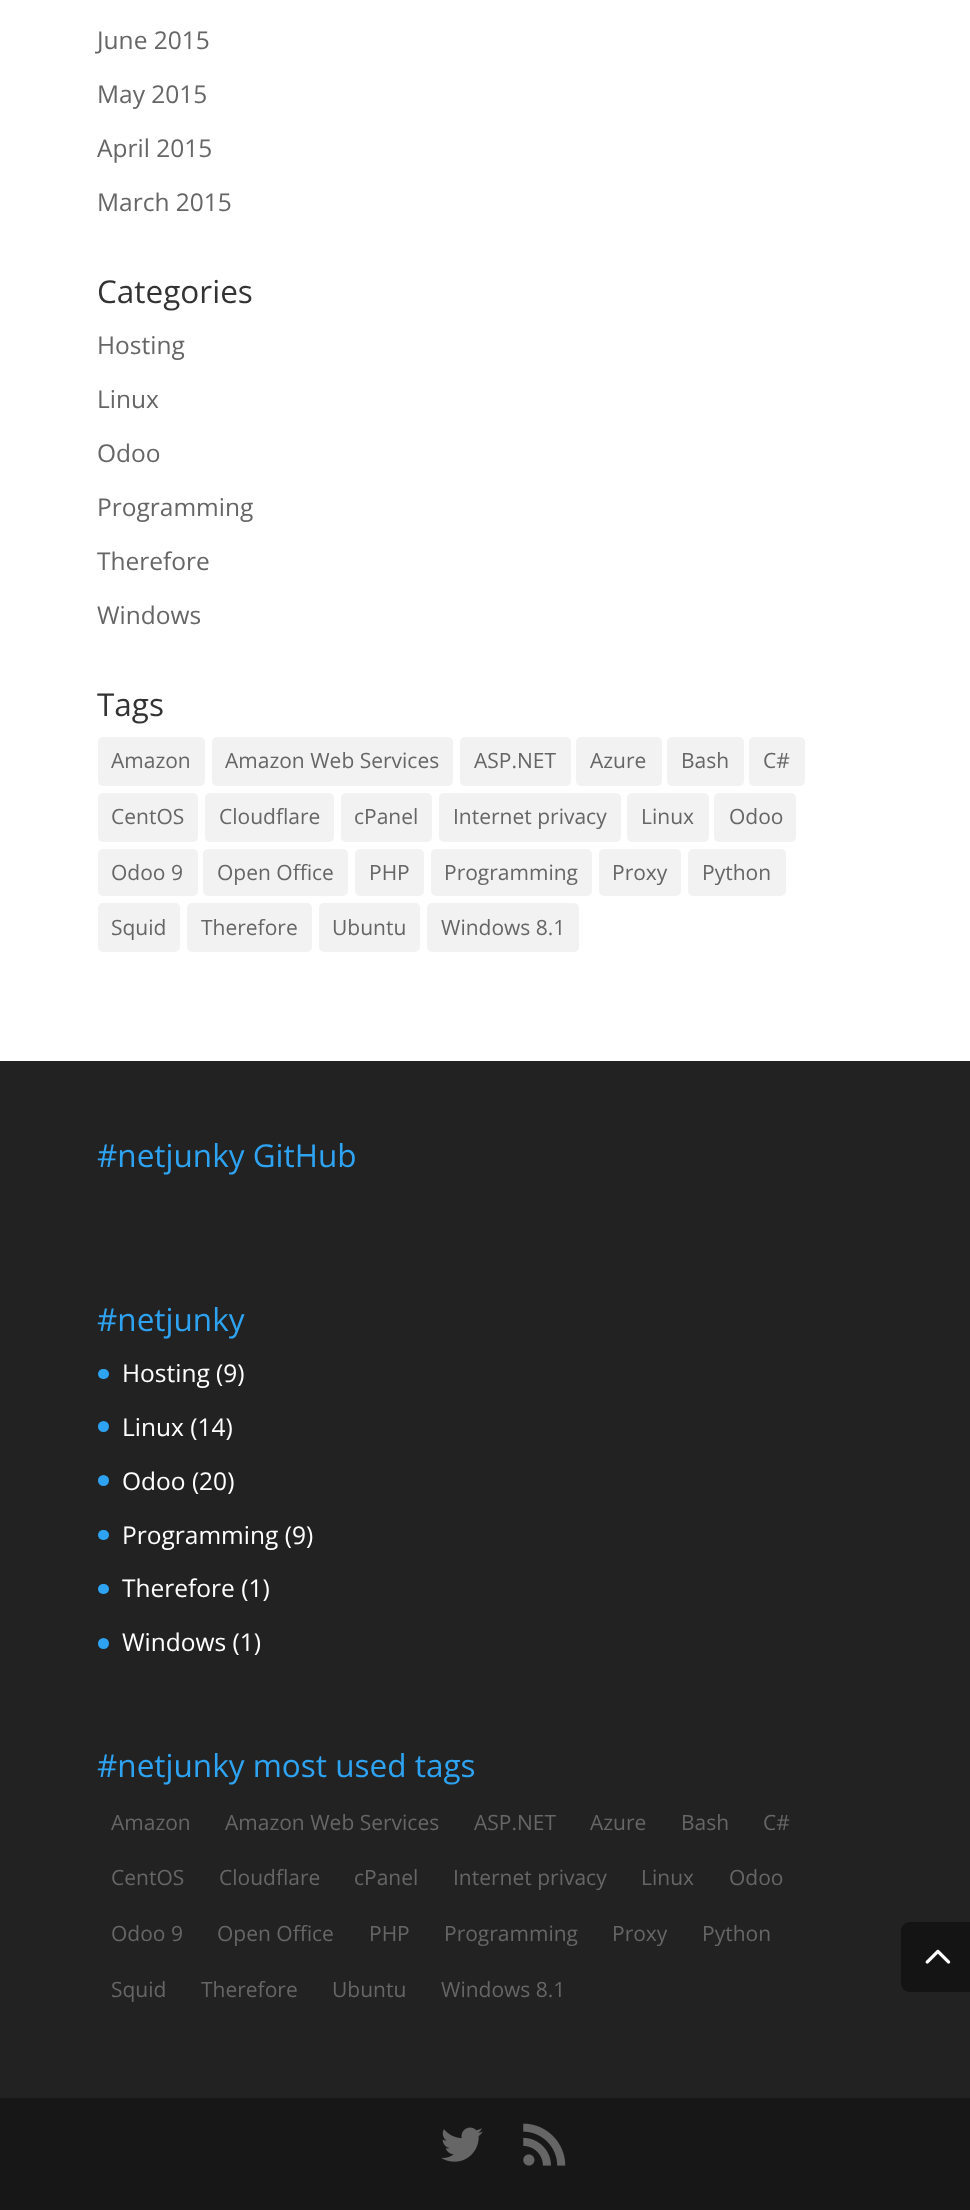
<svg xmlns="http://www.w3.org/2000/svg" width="970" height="2210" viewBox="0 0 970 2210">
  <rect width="100%" height="100%" fill="rgb(255,255,255)"/>
  <g font-family="Open Sans" font-size="24.5" fill="rgb(102,102,102)">
    <text x="97" y="49">June 2015</text>
    <text x="97" y="103">May 2015</text>
    <text x="97" y="157">April 2015</text>
    <text x="97" y="211">March 2015</text>
  </g>
  <text x="97" y="303" font-family="Open Sans" font-size="31.5" fill="rgb(51,51,51)">Categories</text>
  <g font-family="Open Sans" font-size="24.5" fill="rgb(102,102,102)">
    <text x="97" y="354">Hosting</text>
    <text x="97" y="408">Linux</text>
    <text x="97" y="462">Odoo</text>
    <text x="97" y="516">Programming</text>
    <text x="97" y="570">Therefore</text>
    <text x="97" y="624">Windows</text>
  </g>
  <text x="97" y="716" font-family="Open Sans" font-size="31.5" fill="rgb(51,51,51)">Tags</text>
  <rect x="98" y="737" width="107" height="49" rx="5" fill="rgb(242,242,242)"/>
  <text x="111" y="768" font-family="Open Sans" font-size="21" fill="rgb(102,102,102)">Amazon</text>
  <rect x="212" y="737" width="241" height="49" rx="5" fill="rgb(242,242,242)"/>
  <text x="225" y="768" font-family="Open Sans" font-size="21" fill="rgb(102,102,102)">Amazon Web Services</text>
  <rect x="460" y="737" width="111" height="49" rx="5" fill="rgb(242,242,242)"/>
  <text x="474" y="768" font-family="Open Sans" font-size="21" fill="rgb(102,102,102)">ASP.NET</text>
  <rect x="576" y="737" width="86" height="49" rx="5" fill="rgb(242,242,242)"/>
  <text x="590" y="768" font-family="Open Sans" font-size="21" fill="rgb(102,102,102)">Azure</text>
  <rect x="667" y="737" width="77" height="49" rx="5" fill="rgb(242,242,242)"/>
  <text x="681" y="768" font-family="Open Sans" font-size="21" fill="rgb(102,102,102)">Bash</text>
  <rect x="749" y="737" width="56" height="49" rx="5" fill="rgb(242,242,242)"/>
  <text x="763" y="768" font-family="Open Sans" font-size="21" fill="rgb(102,102,102)">C#</text>
  <rect x="98" y="793" width="100" height="49" rx="5" fill="rgb(242,242,242)"/>
  <text x="111" y="824" font-family="Open Sans" font-size="21" fill="rgb(102,102,102)">CentOS</text>
  <rect x="205" y="793" width="129" height="49" rx="5" fill="rgb(242,242,242)"/>
  <text x="219" y="824" font-family="Open Sans" font-size="21" fill="rgb(102,102,102)">Cloudflare</text>
  <rect x="341" y="793" width="91" height="49" rx="5" fill="rgb(242,242,242)"/>
  <text x="354" y="824" font-family="Open Sans" font-size="21" fill="rgb(102,102,102)">cPanel</text>
  <rect x="439" y="793" width="182" height="49" rx="5" fill="rgb(242,242,242)"/>
  <text x="453" y="824" font-family="Open Sans" font-size="21" fill="rgb(102,102,102)">Internet privacy</text>
  <rect x="627" y="793" width="82" height="49" rx="5" fill="rgb(242,242,242)"/>
  <text x="641" y="824" font-family="Open Sans" font-size="21" fill="rgb(102,102,102)">Linux</text>
  <rect x="714" y="793" width="82" height="49" rx="5" fill="rgb(242,242,242)"/>
  <text x="729" y="824" font-family="Open Sans" font-size="21" fill="rgb(102,102,102)">Odoo</text>
  <rect x="98" y="849" width="100" height="47" rx="5" fill="rgb(242,242,242)"/>
  <text x="111" y="880" font-family="Open Sans" font-size="21" fill="rgb(102,102,102)">Odoo 9</text>
  <rect x="203" y="849" width="145" height="47" rx="5" fill="rgb(242,242,242)"/>
  <text x="217" y="880" font-family="Open Sans" font-size="21" fill="rgb(102,102,102)">Open Office</text>
  <rect x="355" y="849" width="69" height="47" rx="5" fill="rgb(242,242,242)"/>
  <text x="369" y="880" font-family="Open Sans" font-size="21" fill="rgb(102,102,102)">PHP</text>
  <rect x="431" y="849" width="161" height="47" rx="5" fill="rgb(242,242,242)"/>
  <text x="444" y="880" font-family="Open Sans" font-size="21" fill="rgb(102,102,102)">Programming</text>
  <rect x="599" y="849" width="82" height="47" rx="5" fill="rgb(242,242,242)"/>
  <text x="612" y="880" font-family="Open Sans" font-size="21" fill="rgb(102,102,102)">Proxy</text>
  <rect x="688" y="849" width="98" height="47" rx="5" fill="rgb(242,242,242)"/>
  <text x="702" y="880" font-family="Open Sans" font-size="21" fill="rgb(102,102,102)">Python</text>
  <rect x="98" y="903" width="82" height="49" rx="5" fill="rgb(242,242,242)"/>
  <text x="111" y="935" font-family="Open Sans" font-size="21" fill="rgb(102,102,102)">Squid</text>
  <rect x="187" y="903" width="125" height="49" rx="5" fill="rgb(242,242,242)"/>
  <text x="201" y="935" font-family="Open Sans" font-size="21" fill="rgb(102,102,102)">Therefore</text>
  <rect x="319" y="903" width="101" height="49" rx="5" fill="rgb(242,242,242)"/>
  <text x="332" y="935" font-family="Open Sans" font-size="21" fill="rgb(102,102,102)">Ubuntu</text>
  <rect x="427" y="903" width="152" height="49" rx="5" fill="rgb(242,242,242)"/>
  <text x="441" y="935" font-family="Open Sans" font-size="21" fill="rgb(102,102,102)">Windows 8.1</text>
  <rect x="0" y="1061" width="970" height="1037" fill="rgb(34,34,34)"/>
  <g font-family="Open Sans" font-size="31.5" fill="rgb(46,163,242)">
    <text x="97" y="1167">#netjunky GitHub</text>
    <text x="97" y="1331">#netjunky</text>
  </g>
  <rect x="98" y="1369" width="11" height="10" rx="5" fill="rgb(46,163,242)"/>
  <text x="122" y="1382" font-family="Open Sans" font-size="24.5" fill="rgb(255,255,255)">Hosting (9)</text>
  <circle cx="103.5" cy="1426.5" r="5.5" fill="rgb(46,163,242)"/>
  <text x="122" y="1436" font-family="Open Sans" font-size="24.5" fill="rgb(255,255,255)">Linux (14)</text>
  <circle cx="103.5" cy="1480.5" r="5.5" fill="rgb(46,163,242)"/>
  <text x="122" y="1490" font-family="Open Sans" font-size="24.5" fill="rgb(255,255,255)">Odoo (20)</text>
  <rect x="98" y="1530" width="11" height="10" rx="5" fill="rgb(46,163,242)"/>
  <text x="122" y="1544" font-family="Open Sans" font-size="24.5" fill="rgb(255,255,255)">Programming (9)</text>
  <rect x="98" y="1584" width="11" height="10" rx="5" fill="rgb(46,163,242)"/>
  <text x="122" y="1597" font-family="Open Sans" font-size="24.5" fill="rgb(255,255,255)">Therefore (1)</text>
  <circle cx="103.5" cy="1643.5" r="5.5" fill="rgb(46,163,242)"/>
  <text x="122" y="1651" font-family="Open Sans" font-size="24.5" fill="rgb(255,255,255)">Windows (1)</text>
  <text x="97" y="1777" font-family="Open Sans" font-size="31.5" fill="rgb(46,163,242)">#netjunky most used tags</text>
  <g font-family="Open Sans" font-size="21" fill="rgb(102,102,102)">
    <text x="111" y="1830">Amazon</text>
    <text x="225" y="1830">Amazon Web Services</text>
    <text x="474" y="1830">ASP.NET</text>
    <text x="590" y="1830">Azure</text>
    <text x="681" y="1830">Bash</text>
    <text x="763" y="1830">C#</text>
    <text x="111" y="1885">CentOS</text>
    <text x="219" y="1885">Cloudflare</text>
    <text x="354" y="1885">cPanel</text>
    <text x="453" y="1885">Internet privacy</text>
    <text x="641" y="1885">Linux</text>
    <text x="729" y="1885">Odoo</text>
    <text x="111" y="1941">Odoo 9</text>
    <text x="217" y="1941">Open Office</text>
    <text x="369" y="1941">PHP</text>
    <text x="444" y="1941">Programming</text>
    <text x="612" y="1941">Proxy</text>
    <text x="702" y="1941">Python</text>
    <text x="111" y="1997">Squid</text>
    <text x="201" y="1997">Therefore</text>
    <text x="332" y="1997">Ubuntu</text>
    <text x="441" y="1997">Windows 8.1</text>
  </g>
  <rect x="0" y="2098" width="970" height="112" fill="rgb(23,23,23)"/>
  <image x="441" y="2127" width="42" height="35" href="pic1.png"/>
  <image x="523" y="2123" width="43" height="43" href="pic2.png"/>
  <path d="M910 1922H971V1992H910C905 1992 901 1988 901 1983V1931C901 1926 905 1922 910 1922Z" fill="rgb(20,20,20)"/>
  <image x="925" y="1949" width="26" height="15" href="pic3.png"/>
</svg>
